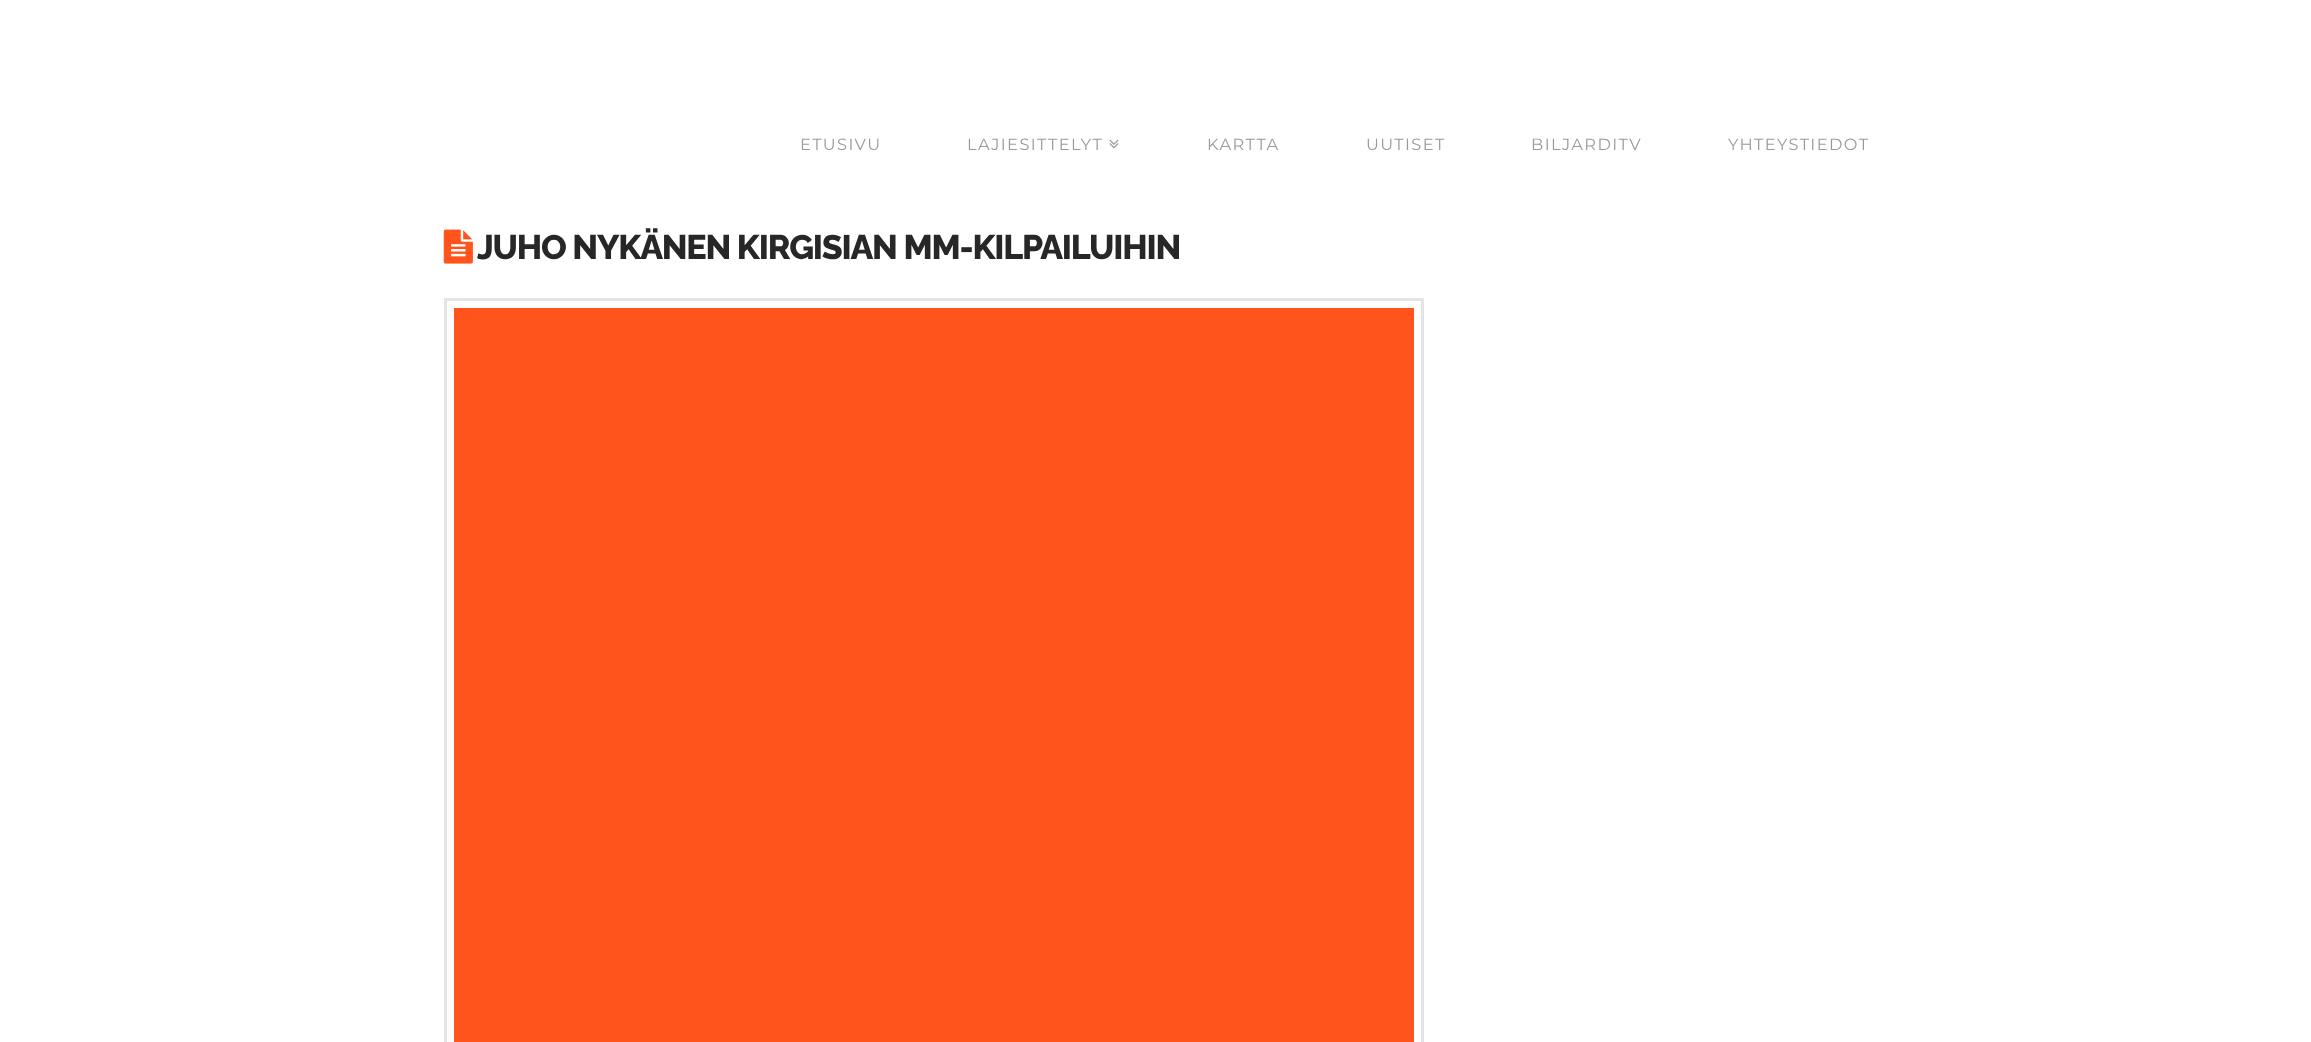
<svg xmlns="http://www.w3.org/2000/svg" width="2311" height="1042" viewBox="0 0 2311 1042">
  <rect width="100%" height="100%" fill="rgb(255,255,255)"/>
  <g font-family="Montserrat" font-size="16.25" font-weight="100" letter-spacing="1.4" fill="rgb(153,153,153)">
    <text x="800" y="150">ETUSIVU</text>
    <text x="967" y="150">LAJIESITTELYT</text>
  </g>
  <image x="1109" y="139" width="10" height="10" href="pic1.png"/>
  <g font-family="Montserrat" font-size="16.25" font-weight="100" letter-spacing="1.4" fill="rgb(153,153,153)">
    <text x="1207" y="150">KARTTA</text>
    <text x="1366" y="150">UUTISET</text>
    <text x="1531" y="150">BILJARDITV</text>
    <text x="1728" y="150">YHTEYSTIEDOT</text>
  </g>
  <image x="443" y="229" width="30" height="35" href="pic2.png"/>
  <text x="477" y="259" font-family="Raleway" font-size="34" font-weight="100" letter-spacing="-1.2" fill="rgb(39,39,39)">JUHO NYKÄNEN KIRGISIAN MM-KILPAILUIHIN</text>
  <rect x="445.5" y="299.5" width="977" height="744" fill="none" stroke="rgb(229,229,229)" stroke-width="3"/>
  <rect x="454" y="308" width="960" height="734" fill="rgb(255,85,29)"/>
</svg>
